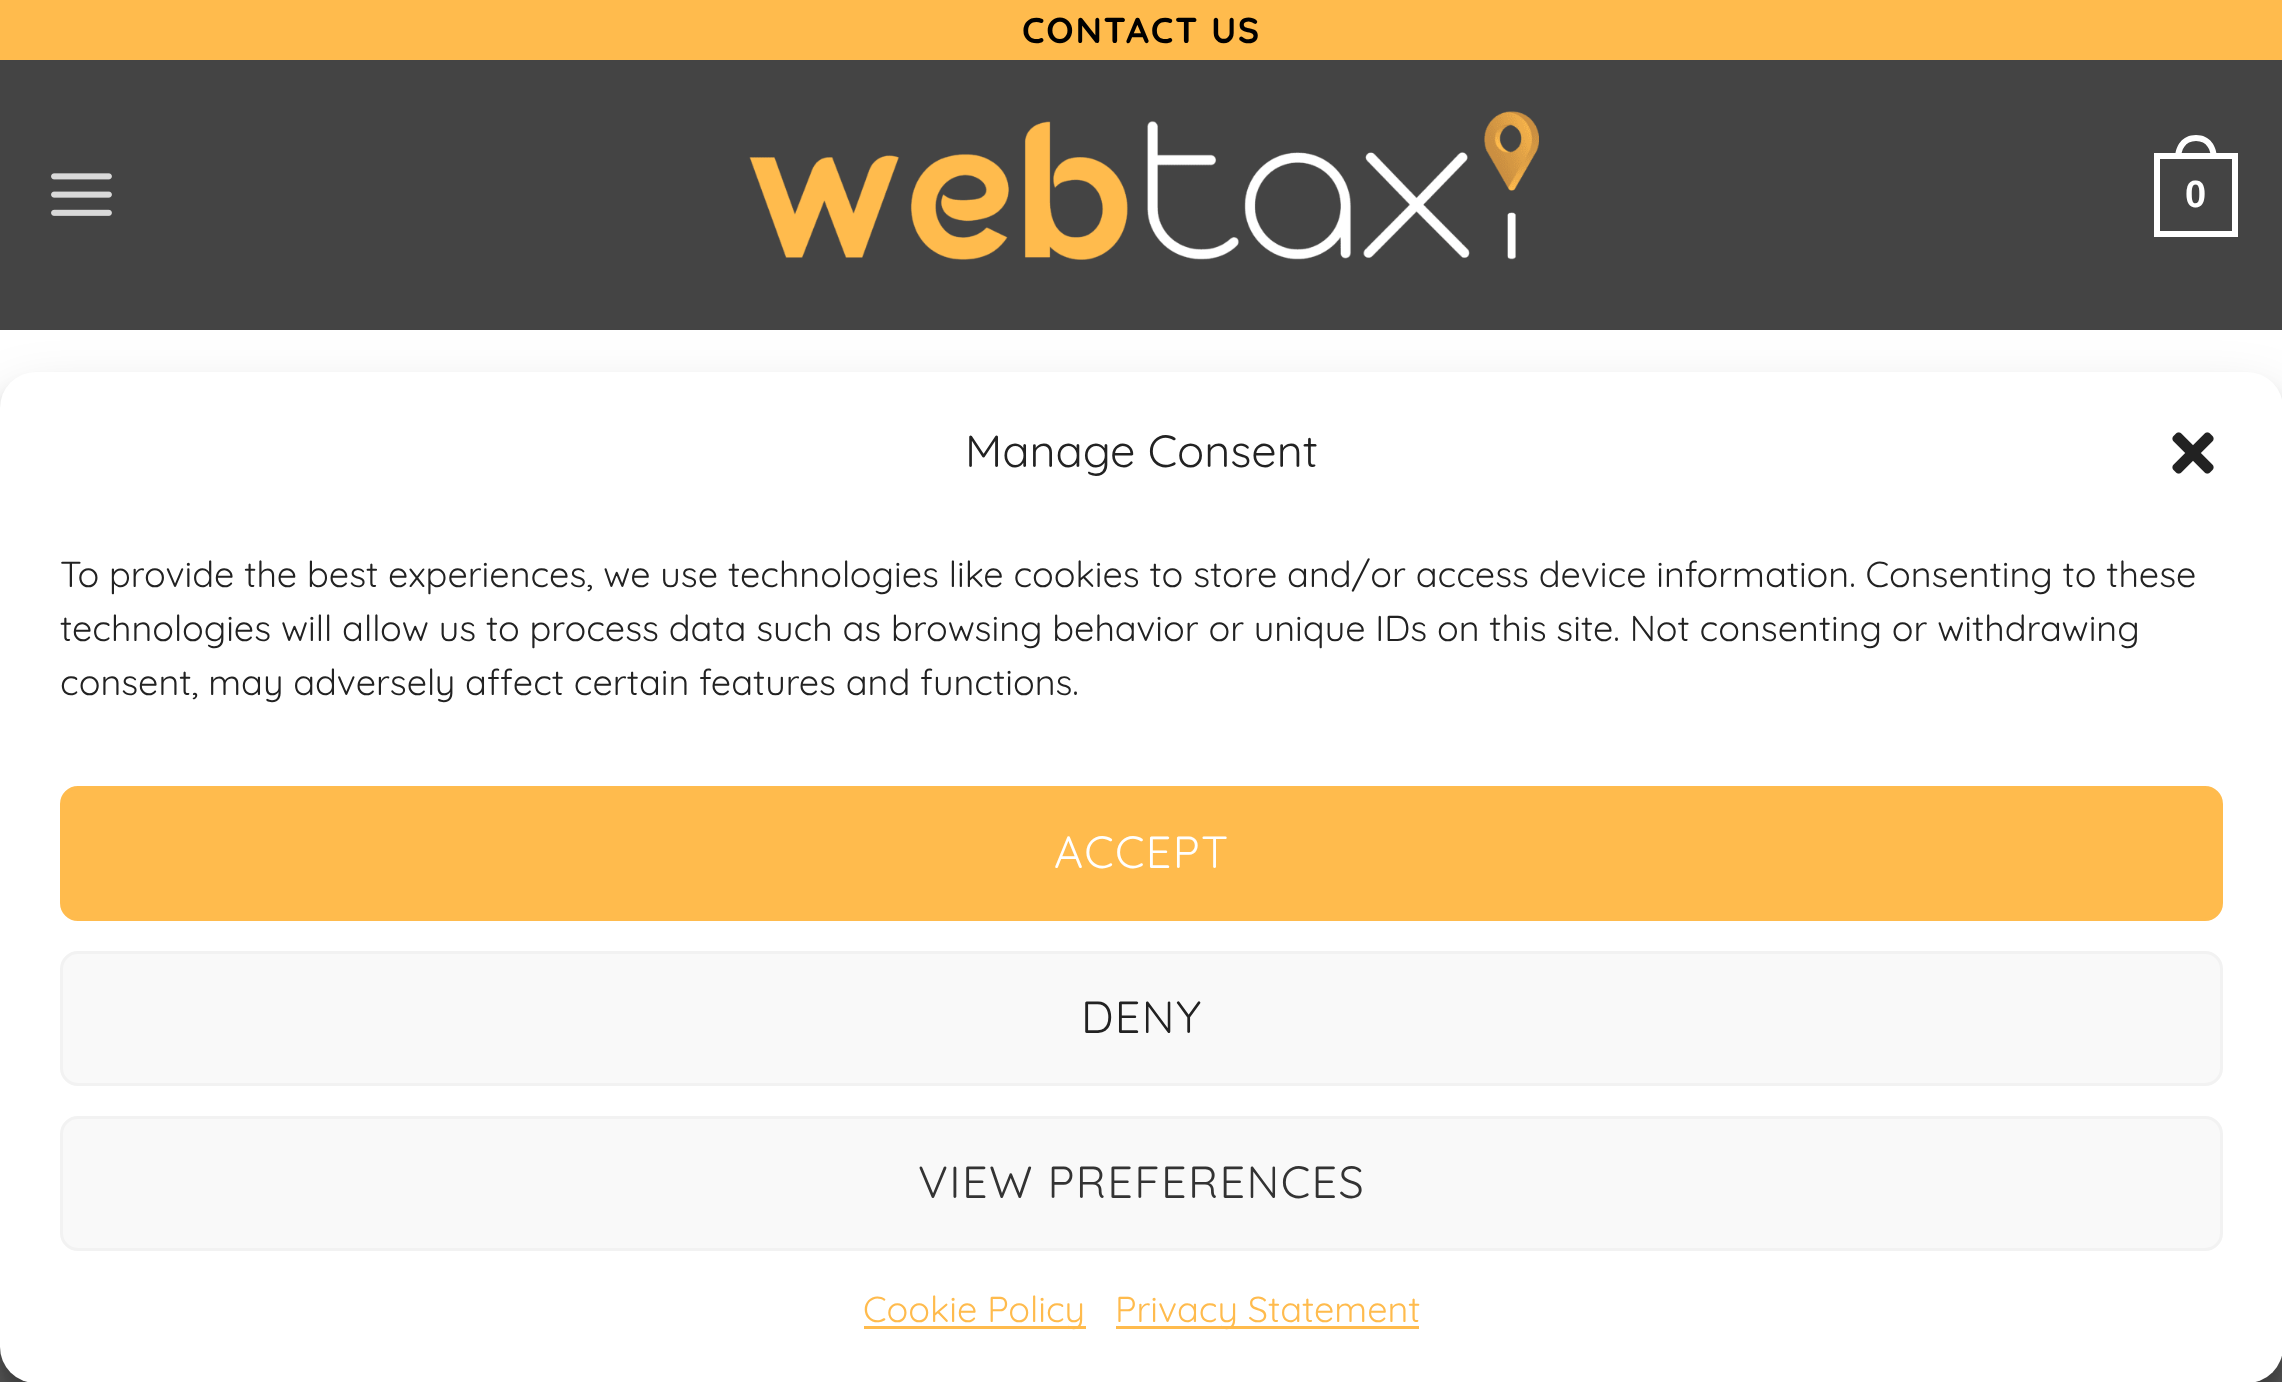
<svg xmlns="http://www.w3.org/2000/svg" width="2282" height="1382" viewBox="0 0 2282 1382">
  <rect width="100%" height="100%" fill="rgb(255,255,255)"/>
  <rect x="0" y="0" width="2282" height="60" fill="rgb(255,187,77)"/>
  <text x="1022" y="43" font-family="Quicksand" font-size="36" font-weight="bold" letter-spacing="1.75" fill="rgb(0,0,0)">CONTACT US</text>
  <rect x="0" y="60" width="2282" height="270" fill="rgb(68,68,68)"/>
  <image x="51" y="173" width="61" height="43" href="pic1.png"/>
  <image x="749" y="111" width="790" height="149" href="pic2.png"/>
  <rect x="2157" y="156" width="78" height="78" fill="none" stroke="rgb(255,255,255)" stroke-width="6"/>
  <path d="M2196 135C2210 135 2217 146 2217 159H2175C2175 146 2182 135 2196 135ZM2196 141C2207 141 2211 150 2211 159H2181C2181 150 2185 141 2196 141Z" fill="rgb(255,255,255)" fill-rule="evenodd"/>
  <text x="2185" y="207" font-family="Liberation Sans" font-size="38" font-weight="bold" fill="rgb(255,255,255)">0</text>
  <rect x="0" y="1347" width="2282" height="35" fill="rgb(91,91,91)"/>
  <rect x="0" y="390" width="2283" height="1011" rx="36" fill="rgba(0,0,0,0.23)" filter="blur(9px)"/>
  <rect x="0" y="402" width="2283" height="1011" rx="36" fill="rgba(0,0,0,0.19)" filter="blur(30px)"/>
  <rect x="2073" y="1161" width="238" height="180" rx="6" fill="rgb(128,128,128)" filter="blur(7.5px)"/>
  <rect x="0" y="372" width="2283" height="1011" rx="36" fill="rgb(255,255,255)"/>
  <text x="965" y="467" font-family="Quicksand" font-size="45" fill="rgb(34,34,34)">Manage Consent</text>
  <image x="2172" y="432" width="42" height="42" href="pic3.png"/>
  <g font-family="Quicksand" font-size="36" fill="rgb(34,34,34)">
    <text>
      <tspan x="60" y="587">To provide the best experiences, we use technologies like cookies to store and/or access device information. Consenting to these</tspan>
      <tspan x="60" y="641">technologies will allow us to process data such as browsing behavior or unique IDs on this site. Not consenting or withdrawing</tspan>
      <tspan x="60" y="695">consent, may adversely affect certain features and functions.</tspan>
    </text>
  </g>
  <rect x="61.5" y="787.5" width="2160" height="132" rx="16.5" fill="rgb(255,187,77)" stroke="rgb(255,187,77)" stroke-width="3"/>
  <text x="1054" y="868" font-family="Quicksand" font-size="45" letter-spacing="1.4" fill="rgb(255,255,255)">ACCEPT</text>
  <rect x="61.5" y="952.5" width="2160" height="132" rx="16.5" fill="rgb(249,249,249)" stroke="rgb(242,242,242)" stroke-width="3"/>
  <text x="1081" y="1033" font-family="Quicksand" font-size="45" letter-spacing="1.4" fill="rgb(34,34,34)">DENY</text>
  <rect x="61.5" y="1117.5" width="2160" height="132" rx="16.5" fill="rgb(249,249,249)" stroke="rgb(242,242,242)" stroke-width="3"/>
  <text x="918" y="1198" font-family="Quicksand" font-size="45" letter-spacing="1.4" fill="rgb(51,51,51)">VIEW PREFERENCES</text>
  <rect x="864" y="1326" width="222" height="3" fill="rgb(255,187,77)"/>
  <text x="863" y="1322" font-family="Quicksand" font-size="36" fill="rgb(255,187,77)">Cookie Policy</text>
  <rect x="1116" y="1326" width="303" height="3" fill="rgb(255,187,77)"/>
  <text x="1115" y="1322" font-family="Quicksand" font-size="36" fill="rgb(255,187,77)">Privacy Statement</text>
</svg>
